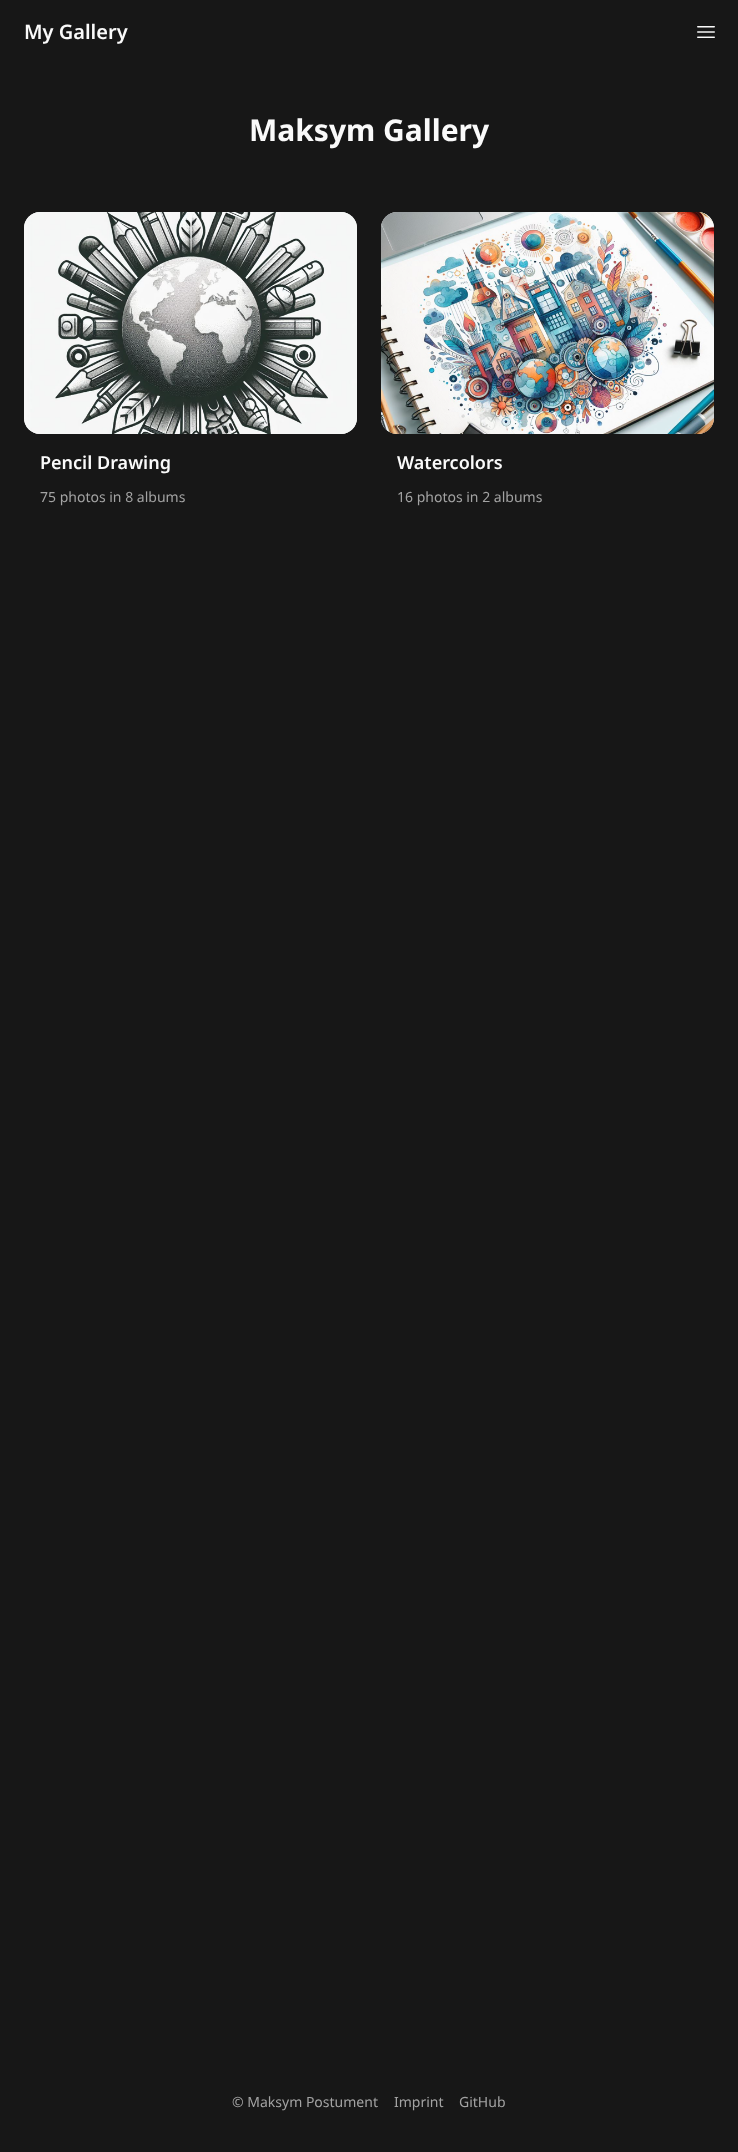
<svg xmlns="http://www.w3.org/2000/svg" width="738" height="2152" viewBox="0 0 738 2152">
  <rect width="100%" height="100%" fill="rgb(23,23,23)"/>
  <text x="24" y="39" font-family="Noto Sans" font-size="20" font-weight="600" fill="rgb(250,250,250)">My Gallery</text>
  <image x="697" y="26" width="18" height="12" href="pic1.png"/>
  <text x="249" y="141" font-family="Noto Sans" font-size="30" font-weight="bold" fill="rgb(250,250,250)">Maksym Gallery</text>
  <rect x="24" y="212" width="333" height="222" rx="16" fill="rgb(235,237,236)"/>
  <image x="24" y="212" width="333" height="222" href="pic2.png"/>
  <text x="40" y="469" font-family="Noto Sans" font-size="18" font-weight="600" fill="rgb(250,250,250)">Pencil Drawing</text>
  <text x="40" y="502" font-family="Noto Sans" font-size="14" fill="rgb(163,163,163)">75 photos in 8 albums</text>
  <rect x="381" y="212" width="333" height="222" rx="16" fill="rgb(218,221,221)"/>
  <image x="381" y="212" width="333" height="222" href="pic3.png"/>
  <text x="397" y="469" font-family="Noto Sans" font-size="18" font-weight="600" fill="rgb(250,250,250)">Watercolors</text>
  <g font-family="Noto Sans" font-size="14" fill="rgb(163,163,163)">
    <text x="397" y="502">16 photos in 2 albums</text>
    <text x="232" y="2107">© Maksym Postument</text>
    <text x="394" y="2107">Imprint</text>
    <text x="459" y="2107">GitHub</text>
  </g>
</svg>
